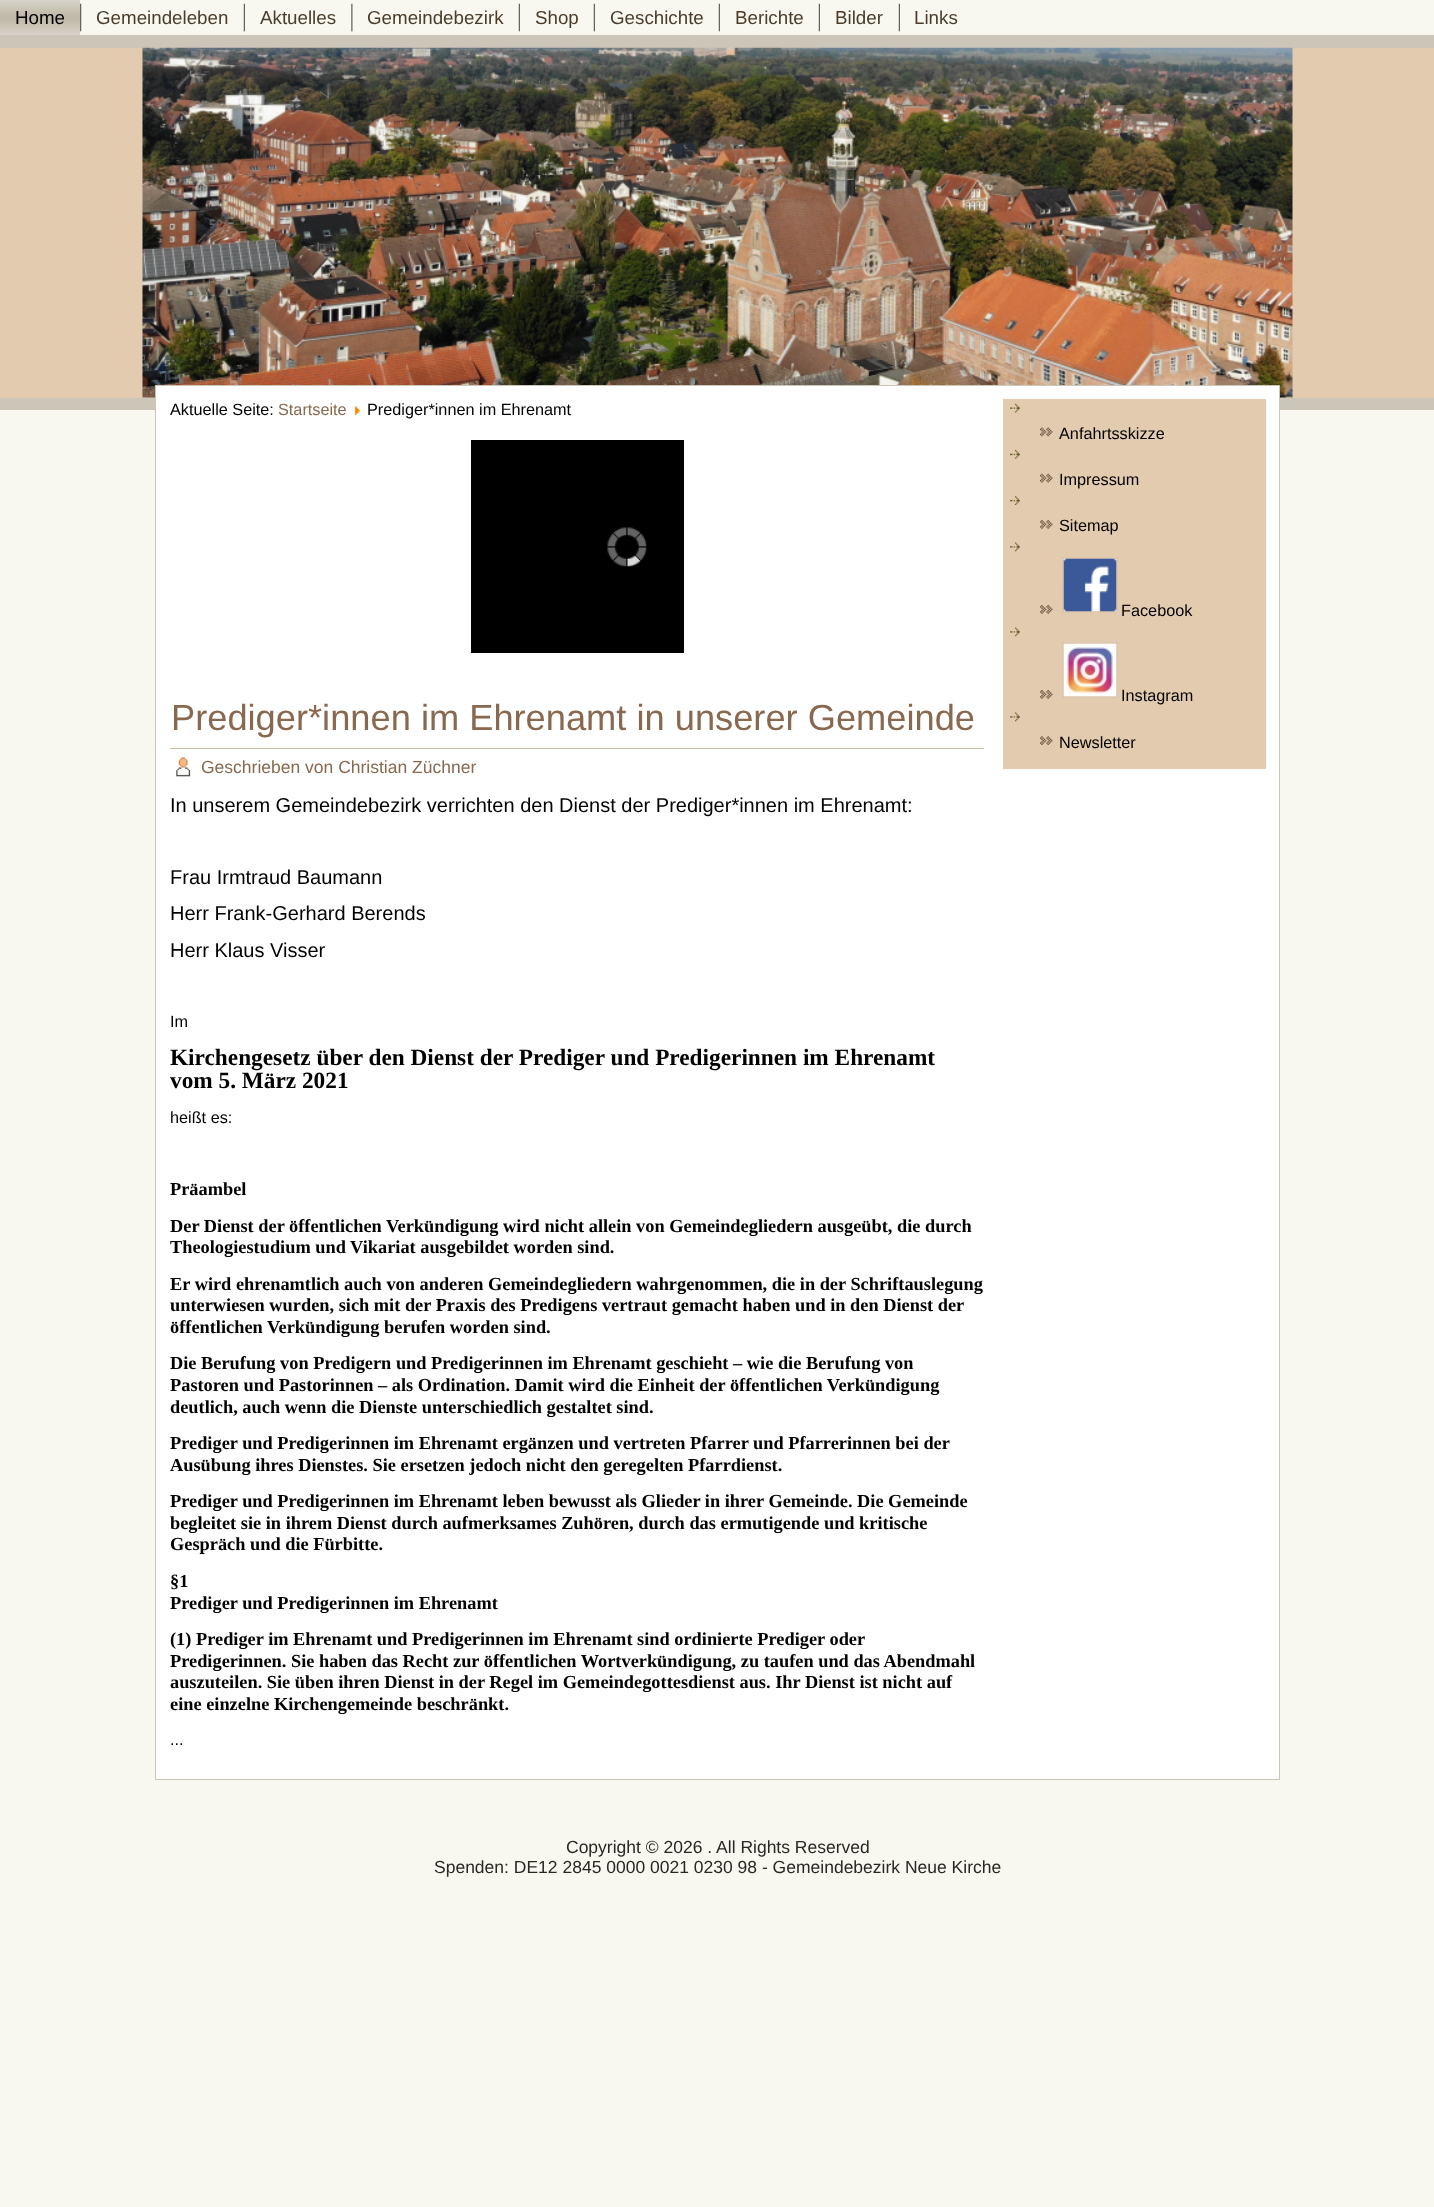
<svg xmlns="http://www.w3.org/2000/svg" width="1434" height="2207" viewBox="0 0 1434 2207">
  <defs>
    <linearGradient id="g1" gradientUnits="userSpaceOnUse" x1="40" y1="0" x2="40" y2="35"><stop offset="0" stop-color="rgb(216,212,202)"/><stop offset="0.4" stop-color="rgb(195,188,172)"/><stop offset="0.5" stop-color="rgb(193,186,169)"/><stop offset="0.6" stop-color="rgb(195,188,172)"/><stop offset="1" stop-color="rgb(216,212,202)"/></linearGradient>
  </defs>
  <rect width="100%" height="100%" fill="rgb(248,248,241)"/>
  <rect x="0" y="0" width="80" height="35" fill="url(#g1)"/>
  <text x="15" y="24" font-family="Liberation Sans" font-size="18.75" fill="rgb(0,0,0)">Home</text>
  <image x="80" y="3" width="2" height="29" href="pic1.png"/>
  <text x="96" y="24" font-family="Liberation Sans" font-size="18.75" fill="rgb(76,60,42)">Gemeindeleben</text>
  <image x="243" y="3" width="2" height="29" href="pic2.png"/>
  <text x="260" y="24" font-family="Liberation Sans" font-size="18.75" fill="rgb(76,60,42)">Aktuelles</text>
  <image x="351" y="3" width="2" height="29" href="pic3.png"/>
  <text x="367" y="24" font-family="Liberation Sans" font-size="18.75" fill="rgb(76,60,42)">Gemeindebezirk</text>
  <image x="518" y="3" width="2" height="29" href="pic2.png"/>
  <text x="535" y="24" font-family="Liberation Sans" font-size="18.75" fill="rgb(76,60,42)">Shop</text>
  <image x="593" y="3" width="2" height="29" href="pic2.png"/>
  <text x="610" y="24" font-family="Liberation Sans" font-size="18.75" fill="rgb(76,60,42)">Geschichte</text>
  <image x="718" y="3" width="2" height="29" href="pic2.png"/>
  <text x="735" y="24" font-family="Liberation Sans" font-size="18.75" fill="rgb(76,60,42)">Berichte</text>
  <image x="818" y="3" width="2" height="29" href="pic2.png"/>
  <text x="835" y="24" font-family="Liberation Sans" font-size="18.75" fill="rgb(76,60,42)">Bilder</text>
  <image x="898" y="3" width="2" height="29" href="pic2.png"/>
  <text x="914" y="24" font-family="Liberation Sans" font-size="18.75" fill="rgb(76,60,42)">Links</text>
  <rect x="0" y="48" width="1434" height="350" fill="rgb(227,203,175)"/>
  <rect x="0" y="35" width="1434" height="13" fill="rgb(204,198,184)"/>
  <rect x="0" y="398" width="1434" height="12" fill="rgb(204,198,184)"/>
  <image x="142" y="47" width="1151" height="351" href="pic4.png"/>
  <rect x="155.5" y="385.5" width="1124" height="1394" fill="rgb(255,255,255)" stroke="rgb(204,198,184)"/>
  <text x="170" y="415" font-family="Liberation Sans" font-size="16.25" fill="rgb(0,0,0)">Aktuelle Seite:</text>
  <text x="278" y="415" font-family="Liberation Sans" font-size="16.25" fill="rgb(136,104,78)">Startseite</text>
  <image x="354" y="406" width="7" height="9" href="pic5.png"/>
  <text x="367" y="415" font-family="Liberation Sans" font-size="16.25" fill="rgb(0,0,0)">Prediger*innen im Ehrenamt</text>
  <rect x="471" y="440" width="213" height="213" fill="rgb(0,0,0)"/>
  <image x="607" y="527" width="40" height="40" href="pic6.png"/>
  <rect x="170" y="748" width="814" height="1" fill="rgb(206,187,166)"/>
  <text x="171" y="730" font-family="Liberation Sans" font-size="36.25" fill="rgb(136,104,78)">Prediger*innen im Ehrenamt in unserer Gemeinde</text>
  <image x="176" y="757" width="15" height="20" href="pic7.png"/>
  <text x="201" y="773" font-family="Liberation Sans" font-size="17.5" fill="rgb(136,104,78)">Geschrieben von Christian Züchner</text>
  <g font-family="Liberation Sans" font-size="20" fill="rgb(0,0,0)">
    <text x="170" y="812">In unserem Gemeindebezirk verrichten den Dienst der Prediger*innen im Ehrenamt:</text>
    <text>
      <tspan x="170" y="884">Frau Irmtraud Baumann</tspan>
      <tspan x="170" y="920">Herr Frank-Gerhard Berends</tspan>
      <tspan x="170" y="957">Herr Klaus Visser</tspan>
    </text>
  </g>
  <text x="170" y="1027" font-family="Liberation Sans" font-size="16.25" fill="rgb(0,0,0)">Im</text>
  <g font-family="Liberation Serif" font-size="23.3" font-weight="bold" fill="rgb(0,0,0)">
    <text>
      <tspan x="170" y="1065">Kirchengesetz über den Dienst der Prediger und Predigerinnen im Ehrenamt</tspan>
      <tspan x="170" y="1088">vom 5. März 2021</tspan>
    </text>
  </g>
  <text x="170" y="1123" font-family="Liberation Sans" font-size="16.25" fill="rgb(0,0,0)">heißt es:</text>
  <g font-family="Liberation Serif" font-size="18.35" font-weight="bold" fill="rgb(0,0,0)">
    <text x="170" y="1195">Präambel</text>
    <text>
      <tspan x="170" y="1232">Der Dienst der öffentlichen Verkündigung wird nicht allein von Gemeindegliedern ausgeübt, die durch</tspan>
      <tspan x="170" y="1253">Theologiestudium und Vikariat ausgebildet worden sind.</tspan>
    </text>
    <text>
      <tspan x="170" y="1290">Er wird ehrenamtlich auch von anderen Gemeindegliedern wahrgenommen, die in der Schriftauslegung</tspan>
      <tspan x="170" y="1311">unterwiesen wurden, sich mit der Praxis des Predigens vertraut gemacht haben und in den Dienst der</tspan>
      <tspan x="170" y="1333">öffentlichen Verkündigung berufen worden sind.</tspan>
      <tspan x="170" y="1369">Die Berufung von Predigern und Predigerinnen im Ehrenamt geschieht – wie die Berufung von</tspan>
      <tspan x="170" y="1391">Pastoren und Pastorinnen – als Ordination. Damit wird die Einheit der öffentlichen Verkündigung</tspan>
      <tspan x="170" y="1413">deutlich, auch wenn die Dienste unterschiedlich gestaltet sind.</tspan>
      <tspan x="170" y="1449">Prediger und Predigerinnen im Ehrenamt ergänzen und vertreten Pfarrer und Pfarrerinnen bei der</tspan>
      <tspan x="170" y="1471">Ausübung ihres Dienstes. Sie ersetzen jedoch nicht den geregelten Pfarrdienst.</tspan>
      <tspan x="170" y="1507">Prediger und Predigerinnen im Ehrenamt leben bewusst als Glieder in ihrer Gemeinde. Die Gemeinde</tspan>
      <tspan x="170" y="1529">begleitet sie in ihrem Dienst durch aufmerksames Zuhören, durch das ermutigende und kritische</tspan>
      <tspan x="170" y="1550">Gespräch und die Fürbitte.</tspan>
    </text>
    <text>
      <tspan x="170" y="1587">§1</tspan>
      <tspan x="170" y="1609">Prediger und Predigerinnen im Ehrenamt</tspan>
      <tspan x="170" y="1645">(1) Prediger im Ehrenamt und Predigerinnen im Ehrenamt sind ordinierte Prediger oder</tspan>
      <tspan x="170" y="1667">Predigerinnen. Sie haben das Recht zur öffentlichen Wortverkündigung, zu taufen und das Abendmahl</tspan>
      <tspan x="170" y="1688">auszuteilen. Sie üben ihren Dienst in der Regel im Gemeindegottesdienst aus. Ihr Dienst ist nicht auf</tspan>
      <tspan x="170" y="1710">eine einzelne Kirchengemeinde beschränkt.</tspan>
    </text>
  </g>
  <text x="170" y="1745" font-family="Liberation Sans" font-size="16.25" fill="rgb(0,0,0)">...</text>
  <rect x="1003" y="399" width="263" height="370" fill="rgb(227,203,176)"/>
  <image x="1010" y="403" width="10" height="10" href="pic8.png"/>
  <image x="1040" y="427" width="13" height="10" href="pic9.png"/>
  <text x="1059" y="439" font-family="Liberation Sans" font-size="16.25" fill="rgb(0,0,0)">Anfahrtsskizze</text>
  <image x="1010" y="450" width="10" height="9" href="pic10.png"/>
  <image x="1040" y="473" width="13" height="10" href="pic11.png"/>
  <text x="1059" y="485" font-family="Liberation Sans" font-size="16.25" fill="rgb(0,0,0)">Impressum</text>
  <image x="1010" y="496" width="10" height="9" href="pic12.png"/>
  <image x="1040" y="520" width="13" height="9" href="pic13.png"/>
  <text x="1059" y="531" font-family="Liberation Sans" font-size="16.25" fill="rgb(0,0,0)">Sitemap</text>
  <image x="1010" y="542" width="10" height="10" href="pic14.png"/>
  <path d="M1062.5 558H1117.5M1117 557.5V612.5M1062.5 612H1117.5M1063 557.5V612.5" fill="none" stroke="rgb(206,187,166)" stroke-width="1.2" stroke-dasharray="1.25 1.25"/>
  <image x="1040" y="605" width="13" height="9" href="pic13.png"/>
  <image x="1063" y="558" width="54" height="54" href="pic15.png"/>
  <text x="1121" y="616" font-family="Liberation Sans" font-size="16.25" fill="rgb(0,0,0)">Facebook</text>
  <image x="1010" y="627" width="10" height="10" href="pic14.png"/>
  <path d="M1062.5 643H1117.5M1117 642.5V697.5M1062.5 697H1117.5M1063 642.5V697.5" fill="none" stroke="rgb(206,187,166)" stroke-width="1.2" stroke-dasharray="1.25 1.25"/>
  <image x="1040" y="690" width="13" height="9" href="pic13.png"/>
  <image x="1063" y="643" width="54" height="54" href="pic16.png"/>
  <text x="1121" y="701" font-family="Liberation Sans" font-size="16.25" fill="rgb(0,0,0)">Instagram</text>
  <image x="1010" y="712" width="10" height="10" href="pic14.png"/>
  <image x="1040" y="736" width="13" height="9" href="pic17.png"/>
  <text x="1059" y="748" font-family="Liberation Sans" font-size="16.25" fill="rgb(0,0,0)">Newsletter</text>
  <g font-family="Liberation Sans" font-size="17.5" fill="rgb(41,39,36)">
    <text x="566" y="1853">Copyright © 2026 . All Rights Reserved</text>
    <text x="434" y="1873">Spenden: DE12 2845 0000 0021 0230 98 - Gemeindebezirk Neue Kirche</text>
  </g>
</svg>
